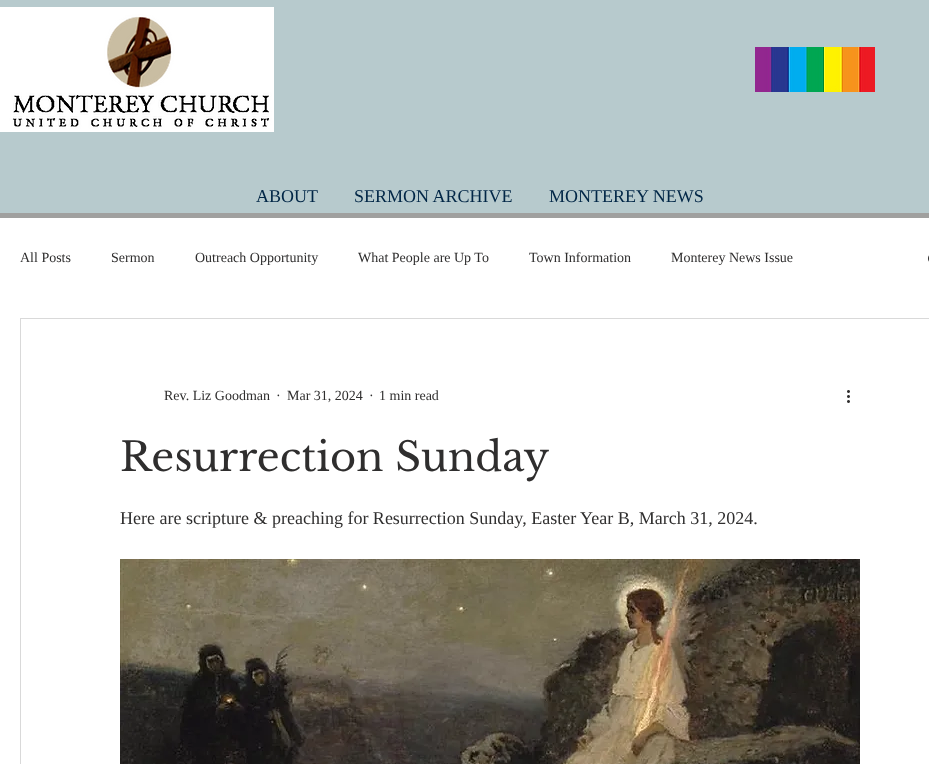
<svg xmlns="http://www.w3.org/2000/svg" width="929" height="764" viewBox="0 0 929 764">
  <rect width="100%" height="100%" fill="rgb(255,255,255)"/>
  <rect x="0" y="213" width="929" height="5" fill="rgb(160,160,159)"/>
  <rect x="0" y="0" width="929" height="213" fill="rgb(183,202,205)"/>
  <image x="0" y="7" width="274" height="125" href="pic1.png"/>
  <image x="755" y="47" width="120" height="45" href="pic2.png"/>
  <g font-family="Liberation Serif" font-size="18" fill="rgb(1,38,70)">
    <text x="256" y="202">ABOUT</text>
    <text x="354" y="202">SERMON ARCHIVE</text>
    <text x="549" y="202">MONTEREY NEWS</text>
  </g>
  <g font-family="Liberation Serif" font-size="14" fill="rgb(47,46,46)">
    <text x="20" y="262">All Posts</text>
    <text x="111" y="262">Sermon</text>
    <text x="195" y="262">Outreach Opportunity</text>
    <text x="358" y="262">What People are Up To</text>
    <text x="529" y="262">Town Information</text>
    <text x="671" y="262">Monterey News Issue</text>
  </g>
  <image x="928" y="255" width="1" height="7" href="pic3.png"/>
  <rect x="20.5" y="318.5" width="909" height="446" fill="none" stroke="rgb(217,217,217)"/>
  <g font-family="Liberation Serif" font-size="14" fill="rgb(47,46,46)">
    <text x="164" y="400">Rev. Liz Goodman</text>
    <text x="276" y="400">·</text>
    <text x="287" y="400">Mar 31, 2024</text>
    <text x="369" y="400">·</text>
    <text x="379" y="400">1 min read</text>
  </g>
  <image x="847" y="390" width="3" height="13" href="pic4.png"/>
  <text x="120" y="471" font-family="Libre Baskerville" font-size="40" fill="rgb(47,46,46)">Resurrection Sunday</text>
  <text x="120" y="524" font-family="Liberation Serif" font-size="18" fill="rgb(47,46,46)">Here are scripture &amp; preaching for Resurrection Sunday, Easter Year B, March 31, 2024.</text>
  <image x="120" y="559" width="740" height="205" href="pic5.png"/>
</svg>
